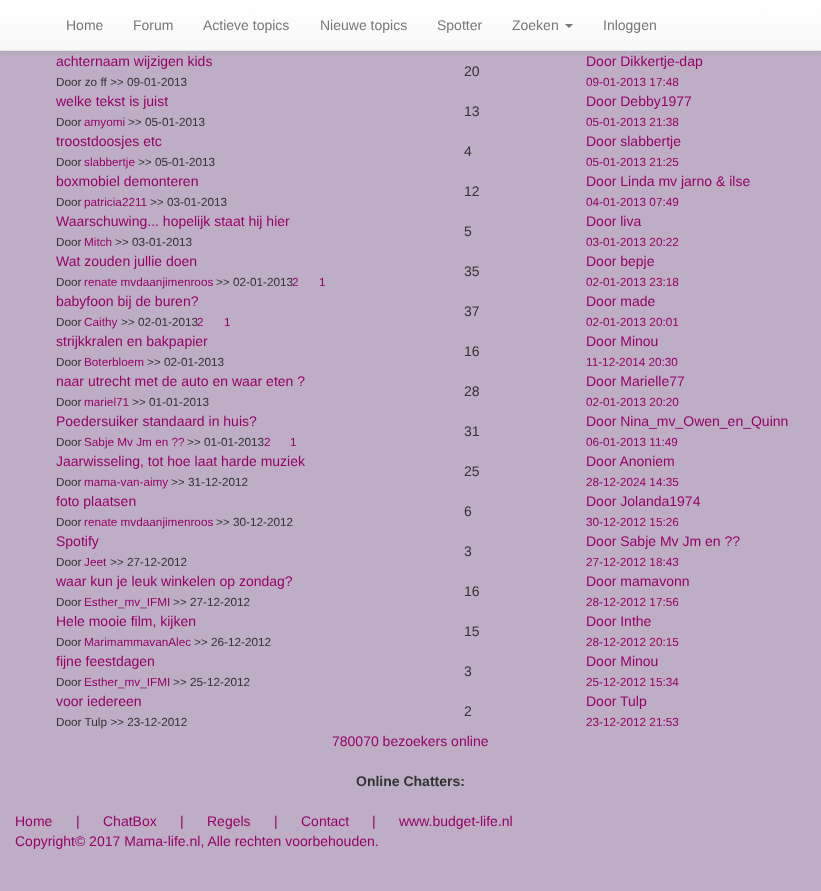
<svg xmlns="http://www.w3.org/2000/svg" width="821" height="891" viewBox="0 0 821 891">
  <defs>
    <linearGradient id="g1" gradientUnits="userSpaceOnUse" x1="411" y1="0" x2="411" y2="50"><stop offset="0" stop-color="rgb(255,255,255)"/><stop offset="1" stop-color="rgb(248,248,248)"/></linearGradient>
  </defs>
  <rect width="100%" height="100%" fill="rgb(189,174,198)"/>
  <rect x="0" y="1" width="821" height="51" fill="rgba(0,0,0,0.07)" filter="blur(2.5px)"/>
  <rect x="0" y="0" width="821" height="50" fill="url(#g1)"/>
  <rect x="0" y="50" width="821" height="1" fill="rgb(231,231,231)"/>
  <g font-family="Liberation Sans" font-size="14" fill="rgb(119,119,119)">
    <text x="66" y="30">Home</text>
    <text x="133" y="30">Forum</text>
    <text x="203" y="30">Actieve topics</text>
    <text x="320" y="30">Nieuwe topics</text>
    <text x="437" y="30">Spotter</text>
    <text x="512" y="30">Zoeken</text>
  </g>
  <path d="M565 24H573L569 28Z" fill="rgb(119,119,119)"/>
  <text x="603" y="30" font-family="Liberation Sans" font-size="14" fill="rgb(119,119,119)">Inloggen</text>
  <text x="56" y="66" font-family="Liberation Sans" font-size="14" fill="rgb(153,0,102)">achternaam wijzigen kids</text>
  <text x="56" y="86" font-family="Liberation Sans" font-size="11.75" fill="rgb(51,51,51)">Door zo ff &gt;&gt; 09-01-2013</text>
  <text x="464" y="76" font-family="Liberation Sans" font-size="14" fill="rgb(51,51,51)">20</text>
  <text x="586" y="66" font-family="Liberation Sans" font-size="14" fill="rgb(153,0,102)">Door Dikkertje-dap</text>
  <text x="586" y="86" font-family="Liberation Sans" font-size="11.75" fill="rgb(153,0,102)">09-01-2013 17:48</text>
  <text x="56" y="106" font-family="Liberation Sans" font-size="14" fill="rgb(153,0,102)">welke tekst is juist</text>
  <text x="56" y="126" font-family="Liberation Sans" font-size="11.75" fill="rgb(51,51,51)">Door</text>
  <text x="84" y="126" font-family="Liberation Sans" font-size="11.75" fill="rgb(153,0,102)">amyomi</text>
  <text x="128" y="126" font-family="Liberation Sans" font-size="11.75" fill="rgb(51,51,51)">&gt;&gt; 05-01-2013</text>
  <text x="464" y="116" font-family="Liberation Sans" font-size="14" fill="rgb(51,51,51)">13</text>
  <text x="586" y="106" font-family="Liberation Sans" font-size="14" fill="rgb(153,0,102)">Door Debby1977</text>
  <text x="586" y="126" font-family="Liberation Sans" font-size="11.75" fill="rgb(153,0,102)">05-01-2013 21:38</text>
  <text x="56" y="146" font-family="Liberation Sans" font-size="14" fill="rgb(153,0,102)">troostdoosjes etc</text>
  <text x="56" y="166" font-family="Liberation Sans" font-size="11.75" fill="rgb(51,51,51)">Door</text>
  <text x="84" y="166" font-family="Liberation Sans" font-size="11.75" fill="rgb(153,0,102)">slabbertje</text>
  <text x="138" y="166" font-family="Liberation Sans" font-size="11.75" fill="rgb(51,51,51)">&gt;&gt; 05-01-2013</text>
  <text x="464" y="156" font-family="Liberation Sans" font-size="14" fill="rgb(51,51,51)">4</text>
  <text x="586" y="146" font-family="Liberation Sans" font-size="14" fill="rgb(153,0,102)">Door slabbertje</text>
  <text x="586" y="166" font-family="Liberation Sans" font-size="11.75" fill="rgb(153,0,102)">05-01-2013 21:25</text>
  <text x="56" y="186" font-family="Liberation Sans" font-size="14" fill="rgb(153,0,102)">boxmobiel demonteren</text>
  <text x="56" y="206" font-family="Liberation Sans" font-size="11.75" fill="rgb(51,51,51)">Door</text>
  <text x="84" y="206" font-family="Liberation Sans" font-size="11.75" fill="rgb(153,0,102)">patricia2211</text>
  <text x="150" y="206" font-family="Liberation Sans" font-size="11.75" fill="rgb(51,51,51)">&gt;&gt; 03-01-2013</text>
  <text x="464" y="196" font-family="Liberation Sans" font-size="14" fill="rgb(51,51,51)">12</text>
  <text x="586" y="186" font-family="Liberation Sans" font-size="14" fill="rgb(153,0,102)">Door Linda mv jarno &amp; ilse</text>
  <text x="586" y="206" font-family="Liberation Sans" font-size="11.75" fill="rgb(153,0,102)">04-01-2013 07:49</text>
  <text x="56" y="226" font-family="Liberation Sans" font-size="14" fill="rgb(153,0,102)">Waarschuwing... hopelijk staat hij hier</text>
  <text x="56" y="246" font-family="Liberation Sans" font-size="11.75" fill="rgb(51,51,51)">Door</text>
  <text x="84" y="246" font-family="Liberation Sans" font-size="11.75" fill="rgb(153,0,102)">Mitch</text>
  <text x="115" y="246" font-family="Liberation Sans" font-size="11.75" fill="rgb(51,51,51)">&gt;&gt; 03-01-2013</text>
  <text x="464" y="236" font-family="Liberation Sans" font-size="14" fill="rgb(51,51,51)">5</text>
  <text x="586" y="226" font-family="Liberation Sans" font-size="14" fill="rgb(153,0,102)">Door liva</text>
  <text x="586" y="246" font-family="Liberation Sans" font-size="11.75" fill="rgb(153,0,102)">03-01-2013 20:22</text>
  <text x="56" y="266" font-family="Liberation Sans" font-size="14" fill="rgb(153,0,102)">Wat zouden jullie doen</text>
  <text x="56" y="286" font-family="Liberation Sans" font-size="11.75" fill="rgb(51,51,51)">Door</text>
  <text x="84" y="286" font-family="Liberation Sans" font-size="11.75" fill="rgb(153,0,102)">renate mvdaanjimenroos</text>
  <text x="216" y="286" font-family="Liberation Sans" font-size="11.75" fill="rgb(51,51,51)">&gt;&gt; 02-01-2013</text>
  <g font-family="Liberation Sans" font-size="11.75" fill="rgb(153,0,102)">
    <text x="292" y="286">2</text>
    <text x="319" y="286">1</text>
  </g>
  <text x="464" y="276" font-family="Liberation Sans" font-size="14" fill="rgb(51,51,51)">35</text>
  <text x="586" y="266" font-family="Liberation Sans" font-size="14" fill="rgb(153,0,102)">Door bepje</text>
  <text x="586" y="286" font-family="Liberation Sans" font-size="11.75" fill="rgb(153,0,102)">02-01-2013 23:18</text>
  <text x="56" y="306" font-family="Liberation Sans" font-size="14" fill="rgb(153,0,102)">babyfoon bij de buren?</text>
  <text x="56" y="326" font-family="Liberation Sans" font-size="11.75" fill="rgb(51,51,51)">Door</text>
  <text x="84" y="326" font-family="Liberation Sans" font-size="11.75" fill="rgb(153,0,102)">Caithy</text>
  <text x="121" y="326" font-family="Liberation Sans" font-size="11.75" fill="rgb(51,51,51)">&gt;&gt; 02-01-2013</text>
  <g font-family="Liberation Sans" font-size="11.75" fill="rgb(153,0,102)">
    <text x="197" y="326">2</text>
    <text x="224" y="326">1</text>
  </g>
  <text x="464" y="316" font-family="Liberation Sans" font-size="14" fill="rgb(51,51,51)">37</text>
  <text x="586" y="306" font-family="Liberation Sans" font-size="14" fill="rgb(153,0,102)">Door made</text>
  <text x="586" y="326" font-family="Liberation Sans" font-size="11.75" fill="rgb(153,0,102)">02-01-2013 20:01</text>
  <text x="56" y="346" font-family="Liberation Sans" font-size="14" fill="rgb(153,0,102)">strijkkralen en bakpapier</text>
  <text x="56" y="366" font-family="Liberation Sans" font-size="11.75" fill="rgb(51,51,51)">Door</text>
  <text x="84" y="366" font-family="Liberation Sans" font-size="11.75" fill="rgb(153,0,102)">Boterbloem</text>
  <text x="147" y="366" font-family="Liberation Sans" font-size="11.75" fill="rgb(51,51,51)">&gt;&gt; 02-01-2013</text>
  <text x="464" y="356" font-family="Liberation Sans" font-size="14" fill="rgb(51,51,51)">16</text>
  <text x="586" y="346" font-family="Liberation Sans" font-size="14" fill="rgb(153,0,102)">Door Minou</text>
  <text x="586" y="366" font-family="Liberation Sans" font-size="11.75" fill="rgb(153,0,102)">11-12-2014 20:30</text>
  <text x="56" y="386" font-family="Liberation Sans" font-size="14" fill="rgb(153,0,102)">naar utrecht met de auto en waar eten ?</text>
  <text x="56" y="406" font-family="Liberation Sans" font-size="11.75" fill="rgb(51,51,51)">Door</text>
  <text x="84" y="406" font-family="Liberation Sans" font-size="11.75" fill="rgb(153,0,102)">mariel71</text>
  <text x="132" y="406" font-family="Liberation Sans" font-size="11.75" fill="rgb(51,51,51)">&gt;&gt; 01-01-2013</text>
  <text x="464" y="396" font-family="Liberation Sans" font-size="14" fill="rgb(51,51,51)">28</text>
  <text x="586" y="386" font-family="Liberation Sans" font-size="14" fill="rgb(153,0,102)">Door Marielle77</text>
  <text x="586" y="406" font-family="Liberation Sans" font-size="11.75" fill="rgb(153,0,102)">02-01-2013 20:20</text>
  <text x="56" y="426" font-family="Liberation Sans" font-size="14" fill="rgb(153,0,102)">Poedersuiker standaard in huis?</text>
  <text x="56" y="446" font-family="Liberation Sans" font-size="11.75" fill="rgb(51,51,51)">Door</text>
  <text x="84" y="446" font-family="Liberation Sans" font-size="11.75" fill="rgb(153,0,102)">Sabje Mv Jm en ??</text>
  <text x="187" y="446" font-family="Liberation Sans" font-size="11.75" fill="rgb(51,51,51)">&gt;&gt; 01-01-2013</text>
  <g font-family="Liberation Sans" font-size="11.75" fill="rgb(153,0,102)">
    <text x="264" y="446">2</text>
    <text x="290" y="446">1</text>
  </g>
  <text x="464" y="436" font-family="Liberation Sans" font-size="14" fill="rgb(51,51,51)">31</text>
  <text x="586" y="426" font-family="Liberation Sans" font-size="14" fill="rgb(153,0,102)">Door Nina_mv_Owen_en_Quinn</text>
  <text x="586" y="446" font-family="Liberation Sans" font-size="11.75" fill="rgb(153,0,102)">06-01-2013 11:49</text>
  <text x="56" y="466" font-family="Liberation Sans" font-size="14" fill="rgb(153,0,102)">Jaarwisseling, tot hoe laat harde muziek</text>
  <text x="56" y="486" font-family="Liberation Sans" font-size="11.75" fill="rgb(51,51,51)">Door</text>
  <text x="84" y="486" font-family="Liberation Sans" font-size="11.75" fill="rgb(153,0,102)">mama-van-aimy</text>
  <text x="171" y="486" font-family="Liberation Sans" font-size="11.75" fill="rgb(51,51,51)">&gt;&gt; 31-12-2012</text>
  <text x="464" y="476" font-family="Liberation Sans" font-size="14" fill="rgb(51,51,51)">25</text>
  <text x="586" y="466" font-family="Liberation Sans" font-size="14" fill="rgb(153,0,102)">Door Anoniem</text>
  <text x="586" y="486" font-family="Liberation Sans" font-size="11.75" fill="rgb(153,0,102)">28-12-2024 14:35</text>
  <text x="56" y="506" font-family="Liberation Sans" font-size="14" fill="rgb(153,0,102)">foto plaatsen</text>
  <text x="56" y="526" font-family="Liberation Sans" font-size="11.75" fill="rgb(51,51,51)">Door</text>
  <text x="84" y="526" font-family="Liberation Sans" font-size="11.75" fill="rgb(153,0,102)">renate mvdaanjimenroos</text>
  <text x="216" y="526" font-family="Liberation Sans" font-size="11.75" fill="rgb(51,51,51)">&gt;&gt; 30-12-2012</text>
  <text x="464" y="516" font-family="Liberation Sans" font-size="14" fill="rgb(51,51,51)">6</text>
  <text x="586" y="506" font-family="Liberation Sans" font-size="14" fill="rgb(153,0,102)">Door Jolanda1974</text>
  <text x="586" y="526" font-family="Liberation Sans" font-size="11.75" fill="rgb(153,0,102)">30-12-2012 15:26</text>
  <text x="56" y="546" font-family="Liberation Sans" font-size="14" fill="rgb(153,0,102)">Spotify</text>
  <text x="56" y="566" font-family="Liberation Sans" font-size="11.75" fill="rgb(51,51,51)">Door</text>
  <text x="84" y="566" font-family="Liberation Sans" font-size="11.75" fill="rgb(153,0,102)">Jeet</text>
  <text x="110" y="566" font-family="Liberation Sans" font-size="11.75" fill="rgb(51,51,51)">&gt;&gt; 27-12-2012</text>
  <text x="464" y="556" font-family="Liberation Sans" font-size="14" fill="rgb(51,51,51)">3</text>
  <text x="586" y="546" font-family="Liberation Sans" font-size="14" fill="rgb(153,0,102)">Door Sabje Mv Jm en ??</text>
  <text x="586" y="566" font-family="Liberation Sans" font-size="11.75" fill="rgb(153,0,102)">27-12-2012 18:43</text>
  <text x="56" y="586" font-family="Liberation Sans" font-size="14" fill="rgb(153,0,102)">waar kun je leuk winkelen op zondag?</text>
  <text x="56" y="606" font-family="Liberation Sans" font-size="11.75" fill="rgb(51,51,51)">Door</text>
  <text x="84" y="606" font-family="Liberation Sans" font-size="11.75" fill="rgb(153,0,102)">Esther_mv_IFMI</text>
  <text x="173" y="606" font-family="Liberation Sans" font-size="11.75" fill="rgb(51,51,51)">&gt;&gt; 27-12-2012</text>
  <text x="464" y="596" font-family="Liberation Sans" font-size="14" fill="rgb(51,51,51)">16</text>
  <text x="586" y="586" font-family="Liberation Sans" font-size="14" fill="rgb(153,0,102)">Door mamavonn</text>
  <text x="586" y="606" font-family="Liberation Sans" font-size="11.75" fill="rgb(153,0,102)">28-12-2012 17:56</text>
  <text x="56" y="626" font-family="Liberation Sans" font-size="14" fill="rgb(153,0,102)">Hele mooie film, kijken</text>
  <text x="56" y="646" font-family="Liberation Sans" font-size="11.75" fill="rgb(51,51,51)">Door</text>
  <text x="84" y="646" font-family="Liberation Sans" font-size="11.75" fill="rgb(153,0,102)">MarimammavanAlec</text>
  <text x="194" y="646" font-family="Liberation Sans" font-size="11.75" fill="rgb(51,51,51)">&gt;&gt; 26-12-2012</text>
  <text x="464" y="636" font-family="Liberation Sans" font-size="14" fill="rgb(51,51,51)">15</text>
  <text x="586" y="626" font-family="Liberation Sans" font-size="14" fill="rgb(153,0,102)">Door Inthe</text>
  <text x="586" y="646" font-family="Liberation Sans" font-size="11.75" fill="rgb(153,0,102)">28-12-2012 20:15</text>
  <text x="56" y="666" font-family="Liberation Sans" font-size="14" fill="rgb(153,0,102)">fijne feestdagen</text>
  <text x="56" y="686" font-family="Liberation Sans" font-size="11.75" fill="rgb(51,51,51)">Door</text>
  <text x="84" y="686" font-family="Liberation Sans" font-size="11.75" fill="rgb(153,0,102)">Esther_mv_IFMI</text>
  <text x="173" y="686" font-family="Liberation Sans" font-size="11.75" fill="rgb(51,51,51)">&gt;&gt; 25-12-2012</text>
  <text x="464" y="676" font-family="Liberation Sans" font-size="14" fill="rgb(51,51,51)">3</text>
  <text x="586" y="666" font-family="Liberation Sans" font-size="14" fill="rgb(153,0,102)">Door Minou</text>
  <text x="586" y="686" font-family="Liberation Sans" font-size="11.75" fill="rgb(153,0,102)">25-12-2012 15:34</text>
  <text x="56" y="706" font-family="Liberation Sans" font-size="14" fill="rgb(153,0,102)">voor iedereen</text>
  <text x="56" y="726" font-family="Liberation Sans" font-size="11.75" fill="rgb(51,51,51)">Door Tulp &gt;&gt; 23-12-2012</text>
  <text x="464" y="716" font-family="Liberation Sans" font-size="14" fill="rgb(51,51,51)">2</text>
  <text x="586" y="706" font-family="Liberation Sans" font-size="14" fill="rgb(153,0,102)">Door Tulp</text>
  <text x="586" y="726" font-family="Liberation Sans" font-size="11.75" fill="rgb(153,0,102)">23-12-2012 21:53</text>
  <text x="332" y="746" font-family="Liberation Sans" font-size="14" fill="rgb(153,0,102)">780070 bezoekers online</text>
  <text x="356" y="786" font-family="Liberation Sans" font-size="14" font-weight="bold" fill="rgb(51,51,51)">Online Chatters:</text>
  <g font-family="Liberation Sans" font-size="14" fill="rgb(153,0,102)">
    <text x="15" y="826">Home</text>
    <text x="76" y="826">|</text>
    <text x="103" y="826">ChatBox</text>
    <text x="180" y="826">|</text>
    <text x="207" y="826">Regels</text>
    <text x="274" y="826">|</text>
    <text x="301" y="826">Contact</text>
    <text x="372" y="826">|</text>
    <text x="399" y="826">www.budget-life.nl</text>
    <text x="15" y="846">Copyright© 2017 Mama-life.nl, Alle rechten voorbehouden.</text>
  </g>
</svg>
